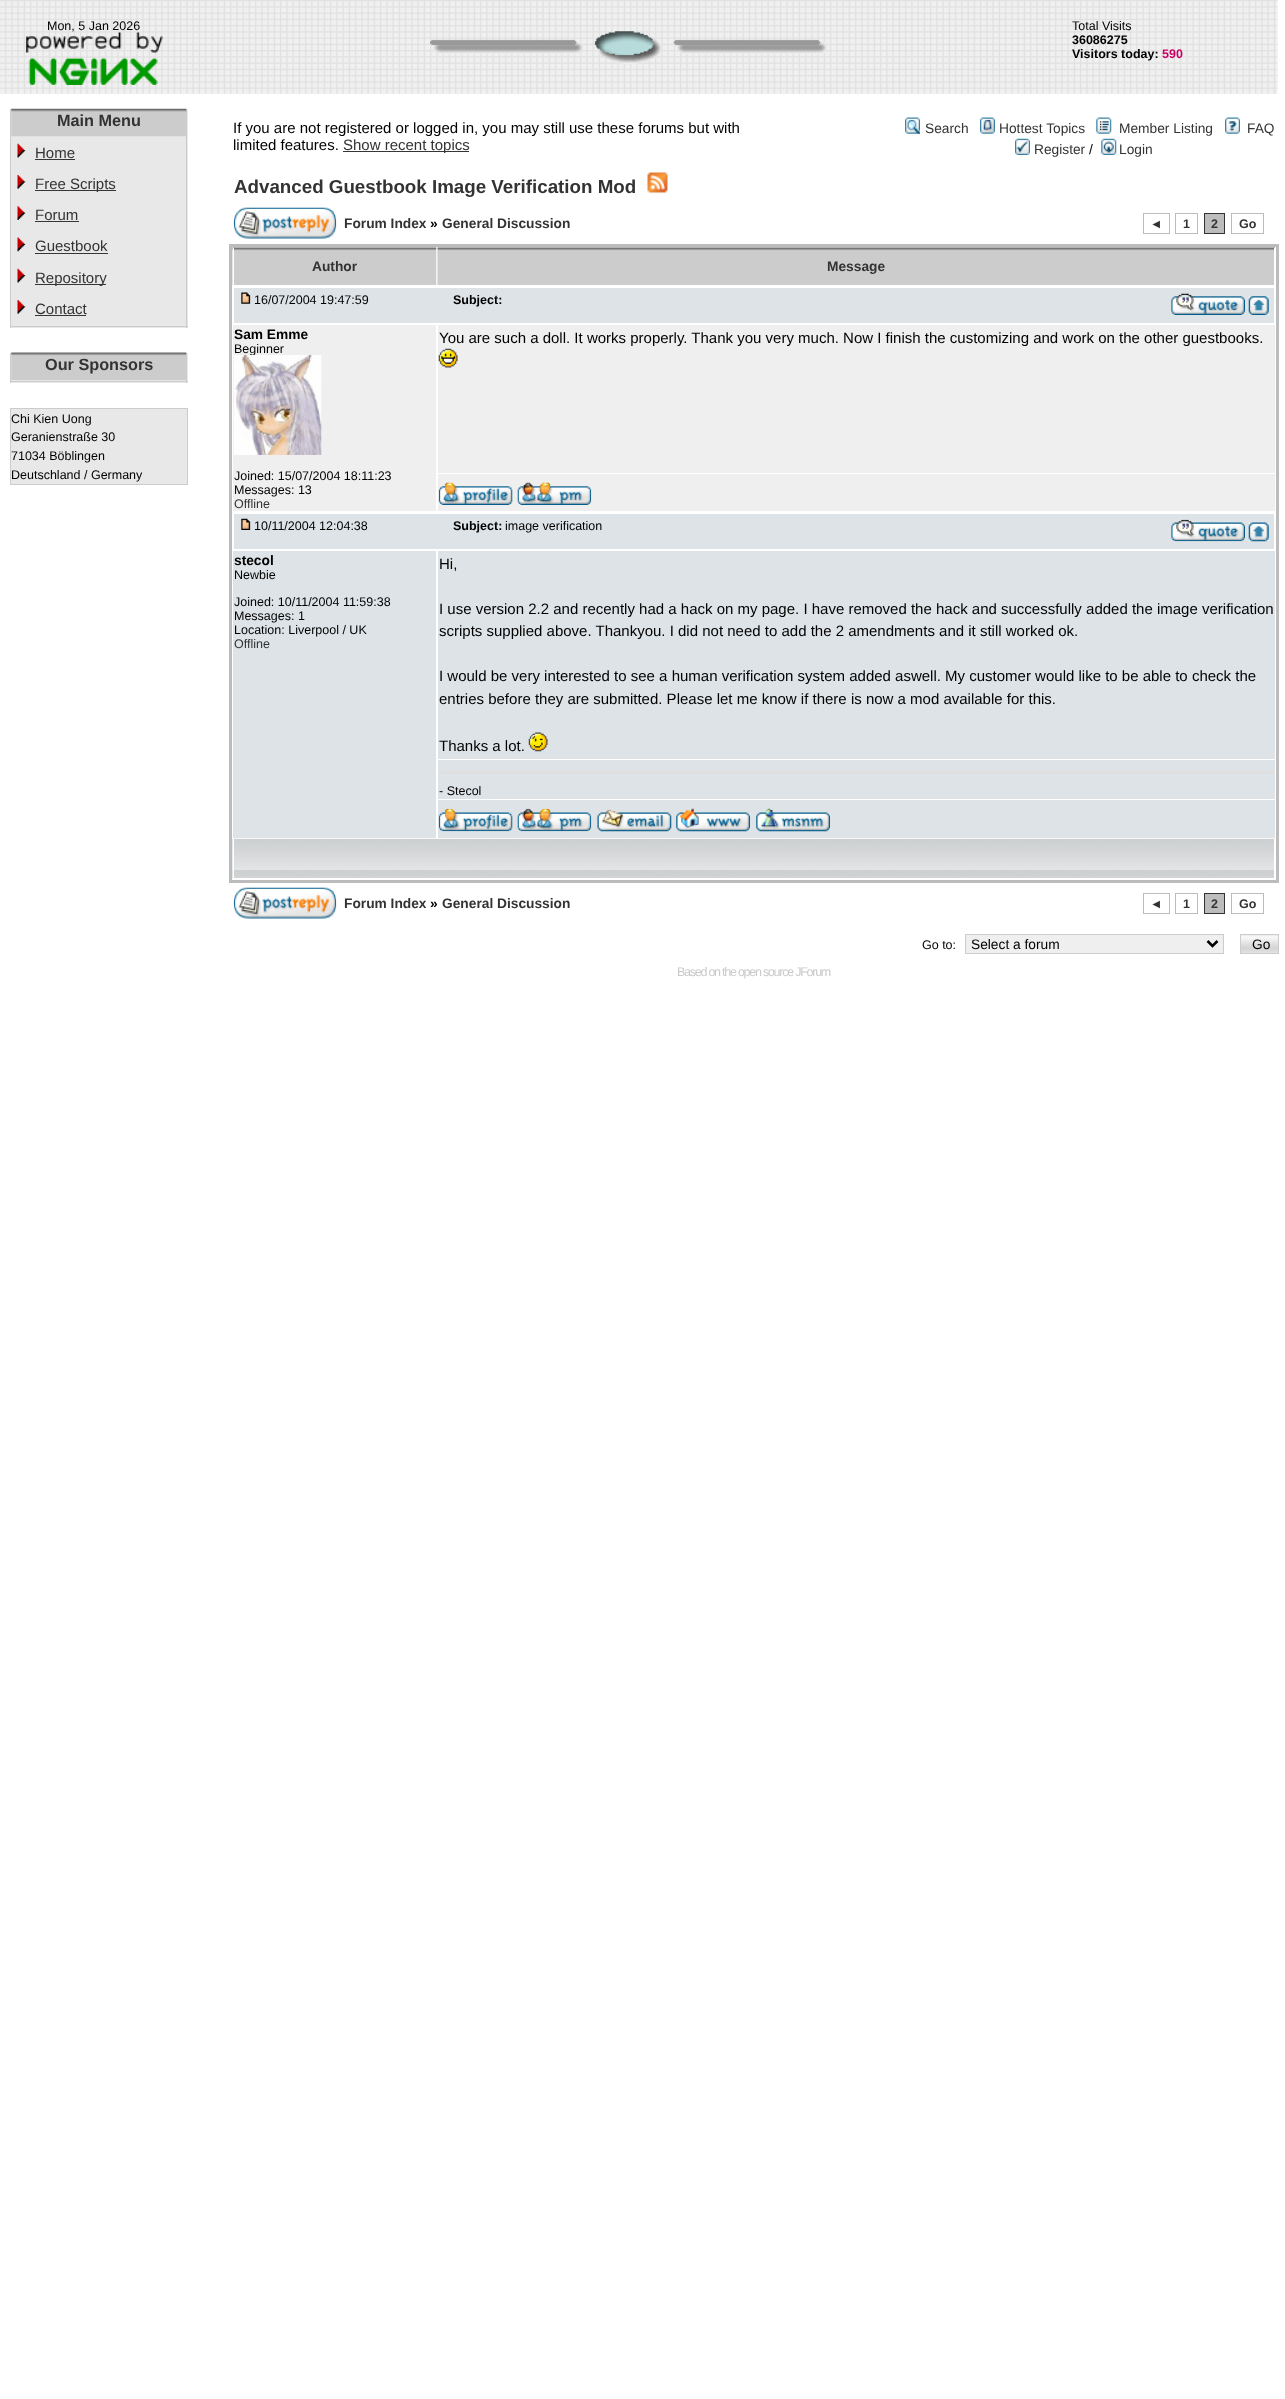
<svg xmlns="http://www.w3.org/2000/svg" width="1285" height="2399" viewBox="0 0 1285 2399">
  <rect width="100%" height="100%" fill="rgb(255,255,255)"/>
  <image x="0" y="0" width="1278" height="94" href="pic1.png"/>
  <text x="47" y="30" font-family="Liberation Sans" font-size="12.5" fill="rgb(0,0,0)">Mon, 5 Jan 2026</text>
  <image x="26" y="32" width="137" height="53" href="pic2.png"/>
  <text x="1072" y="30" font-family="Liberation Sans" font-size="12.5" fill="rgb(0,0,0)">Total Visits</text>
  <g font-family="Liberation Sans" font-size="12.5" font-weight="bold" fill="rgb(0,0,0)">
    <text>
      <tspan x="1072" y="44">36086275</tspan>
      <tspan x="1072" y="58">Visitors today:</tspan>
    </text>
  </g>
  <text x="1162" y="58" font-family="Liberation Sans" font-size="12.5" font-weight="bold" fill="rgb(204,0,102)">590</text>
  <image x="430" y="31" width="397" height="33" href="pic3.png"/>
  <rect x="11" y="109" width="177" height="219" fill="rgb(232,232,232)"/>
  <rect x="186" y="109" width="1" height="219" fill="rgb(204,204,204)"/>
  <rect x="10" y="326" width="178" height="1" fill="rgb(204,204,204)"/>
  <rect x="10" y="109" width="1" height="219" fill="rgb(204,204,204)"/>
  <image x="11" y="108" width="176" height="29" href="pic4.png"/>
  <text x="57" y="126" font-family="Liberation Sans" font-size="16.25" font-weight="bold" fill="rgb(51,51,51)">Main Menu</text>
  <image x="17" y="143" width="9" height="15" href="pic5.png"/>
  <text x="35" y="158" font-family="Liberation Sans" font-size="15" fill="rgb(51,51,51)">Home</text>
  <rect x="35" y="159" width="40" height="1" fill="rgb(54,54,54)"/>
  <image x="17" y="175" width="9" height="14" href="pic6.png"/>
  <rect x="35" y="190" width="81" height="1" fill="rgb(54,54,54)"/>
  <text x="35" y="189" font-family="Liberation Sans" font-size="15" fill="rgb(51,51,51)">Free Scripts</text>
  <image x="17" y="206" width="9" height="14" href="pic7.png"/>
  <text x="35" y="220" font-family="Liberation Sans" font-size="15" fill="rgb(51,51,51)">Forum</text>
  <rect x="35" y="221" width="44" height="1" fill="rgb(54,54,54)"/>
  <image x="17" y="237" width="9" height="15" href="pic8.png"/>
  <text x="35" y="251" font-family="Liberation Sans" font-size="15" fill="rgb(51,51,51)">Guestbook</text>
  <rect x="35" y="253" width="73" height="1" fill="rgb(54,54,54)"/>
  <image x="17" y="268" width="9" height="15" href="pic5.png"/>
  <rect x="35" y="284" width="71" height="1" fill="rgb(54,54,54)"/>
  <text x="35" y="283" font-family="Liberation Sans" font-size="15" fill="rgb(51,51,51)">Repository</text>
  <image x="17" y="300" width="9" height="14" href="pic6.png"/>
  <text x="35" y="314" font-family="Liberation Sans" font-size="15" fill="rgb(51,51,51)">Contact</text>
  <rect x="35" y="315" width="51" height="1" fill="rgb(54,54,54)"/>
  <rect x="11" y="353" width="177" height="30" fill="rgb(232,232,232)"/>
  <rect x="186" y="353" width="1" height="30" fill="rgb(204,204,204)"/>
  <rect x="10" y="381" width="178" height="1" fill="rgb(204,204,204)"/>
  <rect x="10" y="353" width="1" height="30" fill="rgb(204,204,204)"/>
  <image x="11" y="352" width="176" height="28" href="pic9.png"/>
  <text x="45" y="370" font-family="Liberation Sans" font-size="16.25" font-weight="bold" fill="rgb(51,51,51)">Our Sponsors</text>
  <rect x="10.5" y="408.5" width="177" height="76" fill="rgb(232,232,232)" stroke="rgb(204,204,204)"/>
  <g font-family="Liberation Sans" font-size="12.5" fill="rgb(0,0,0)">
    <text>
      <tspan x="11" y="423">Chi Kien Uong</tspan>
      <tspan x="11" y="441">Geranienstraße 30</tspan>
      <tspan x="11" y="460">71034 Böblingen</tspan>
      <tspan x="11" y="479">Deutschland / Germany</tspan>
    </text>
  </g>
  <g font-family="Liberation Sans" font-size="15" fill="rgb(0,0,0)">
    <text>
      <tspan x="233" y="133">If you are not registered or logged in, you may still use these forums but with</tspan>
      <tspan x="233" y="150">limited features.</tspan>
    </text>
  </g>
  <rect x="343" y="151" width="126" height="1" fill="rgb(54,54,54)"/>
  <text x="343" y="150" font-family="Liberation Sans" font-size="15" fill="rgb(51,51,51)">Show recent topics</text>
  <image x="905" y="117" width="15" height="17" href="pic10.png"/>
  <text x="925" y="133" font-family="Liberation Sans" font-size="13.75" fill="rgb(51,51,51)">Search</text>
  <image x="980" y="117" width="15" height="17" href="pic11.png"/>
  <text x="999" y="133" font-family="Liberation Sans" font-size="13.75" fill="rgb(51,51,51)">Hottest Topics</text>
  <image x="1096" y="117" width="16" height="17" href="pic12.png"/>
  <text x="1119" y="133" font-family="Liberation Sans" font-size="13.75" fill="rgb(51,51,51)">Member Listing</text>
  <image x="1225" y="117" width="15" height="17" href="pic13.png"/>
  <text x="1247" y="133" font-family="Liberation Sans" font-size="13.75" fill="rgb(51,51,51)">FAQ</text>
  <image x="1015" y="138" width="15" height="17" href="pic14.png"/>
  <text x="1034" y="154" font-family="Liberation Sans" font-size="13.75" fill="rgb(51,51,51)">Register</text>
  <text x="1089" y="154" font-family="Liberation Sans" font-size="13.75" fill="rgb(0,0,0)">/</text>
  <image x="1101" y="138" width="16" height="17" href="pic15.png"/>
  <text x="1119" y="154" font-family="Liberation Sans" font-size="13.75" fill="rgb(51,51,51)">Login</text>
  <text x="234" y="193" font-family="Liberation Sans" font-size="18.75" font-weight="bold" fill="rgb(51,51,51)">Advanced Guestbook Image Verification Mod</text>
  <image x="647" y="172" width="21" height="21" href="pic16.png"/>
  <image x="233" y="207" width="104" height="32" href="pic17.png"/>
  <text x="344" y="228" font-family="Liberation Sans" font-size="13.75" font-weight="bold" fill="rgb(51,51,51)">Forum Index</text>
  <text x="430" y="228" font-family="Liberation Sans" font-size="13.75" font-weight="bold" fill="rgb(0,0,0)">»</text>
  <text x="442" y="228" font-family="Liberation Sans" font-size="13.75" font-weight="bold" fill="rgb(51,51,51)">General Discussion</text>
  <rect x="1143.5" y="213.5" width="26" height="20" fill="none" stroke="rgb(188,188,188)"/>
  <text x="1150" y="228" font-family="Liberation Sans" font-size="12.5" font-weight="bold" fill="rgb(51,51,51)">◄</text>
  <rect x="1175.5" y="213.5" width="22" height="20" fill="none" stroke="rgb(188,188,188)"/>
  <text x="1183" y="228" font-family="Liberation Sans" font-size="12.5" font-weight="bold" fill="rgb(51,51,51)">1</text>
  <rect x="1204.5" y="213.5" width="20" height="20" fill="rgb(188,188,188)" stroke="rgb(51,51,51)"/>
  <text x="1211" y="228" font-family="Liberation Sans" font-size="12.5" font-weight="bold" fill="rgb(51,51,51)">2</text>
  <rect x="1231.5" y="213.5" width="32" height="20" fill="none" stroke="rgb(188,188,188)"/>
  <text x="1239" y="228" font-family="Liberation Sans" font-size="12.5" font-weight="bold" fill="rgb(51,51,51)">Go</text>
  <rect x="230.5" y="245.5" width="1047" height="636" fill="none" stroke="rgb(188,188,188)" stroke-width="3"/>
  <image x="232" y="247" width="205" height="38" href="pic18.png"/>
  <rect x="233" y="248" width="1" height="37" fill="rgb(255,255,255)"/>
  <text x="312" y="271" font-family="Liberation Sans" font-size="13.75" font-weight="bold" fill="rgb(51,51,51)">Author</text>
  <image x="437" y="247" width="838" height="38" href="pic19.png"/>
  <rect x="1274" y="248" width="1" height="37" fill="rgb(255,255,255)"/>
  <text x="827" y="271" font-family="Liberation Sans" font-size="13.75" font-weight="bold" fill="rgb(51,51,51)">Message</text>
  <rect x="234" y="288" width="1040" height="35" fill="rgb(222,227,231)"/>
  <image x="241" y="292" width="10" height="12" href="pic20.png"/>
  <text x="254" y="304" font-family="Liberation Sans" font-size="12.5" fill="rgb(0,0,0)">16/07/2004 19:47:59</text>
  <text x="453" y="304" font-family="Liberation Sans" font-size="12.5" font-weight="bold" fill="rgb(0,0,0)">Subject:</text>
  <image x="1171" y="293" width="74" height="22" href="pic21.png"/>
  <image x="1248" y="296" width="21" height="19" href="pic22.png"/>
  <rect x="233" y="325" width="203" height="186" fill="rgb(239,239,239)"/>
  <text x="234" y="339" font-family="Liberation Sans" font-size="13.75" font-weight="bold" fill="rgb(0,0,0)">Sam Emme</text>
  <text x="234" y="353" font-family="Liberation Sans" font-size="12.5" fill="rgb(0,0,0)">Beginner</text>
  <image x="233" y="355" width="89" height="100" href="pic23.png"/>
  <g font-family="Liberation Sans" font-size="12.5" fill="rgb(0,0,0)">
    <text>
      <tspan x="234" y="480">Joined: 15/07/2004 18:11:23</tspan>
      <tspan x="234" y="494">Messages: 13</tspan>
    </text>
  </g>
  <text x="234" y="508" font-family="Liberation Sans" font-size="12.5" fill="rgb(51,51,51)">Offline</text>
  <rect x="438" y="325" width="837" height="148" fill="rgb(239,239,239)"/>
  <text x="439" y="343" font-family="Liberation Sans" font-size="15" fill="rgb(0,0,0)">You are such a doll. It works properly. Thank you very much. Now I finish the customizing and work on the other guestbooks.</text>
  <image x="438" y="348" width="20" height="20" href="pic24.png"/>
  <rect x="438" y="474" width="837" height="37" fill="rgb(239,239,239)"/>
  <image x="438" y="482" width="75" height="23" href="pic25.png"/>
  <image x="517" y="482" width="75" height="23" href="pic26.png"/>
  <rect x="234" y="514" width="1040" height="35" fill="rgb(222,227,231)"/>
  <image x="241" y="518" width="10" height="12" href="pic27.png"/>
  <text x="254" y="530" font-family="Liberation Sans" font-size="12.5" fill="rgb(0,0,0)">10/11/2004 12:04:38</text>
  <text x="453" y="530" font-family="Liberation Sans" font-size="12.5" font-weight="bold" fill="rgb(0,0,0)">Subject:</text>
  <text x="505" y="530" font-family="Liberation Sans" font-size="12.5" fill="rgb(0,0,0)">image verification</text>
  <image x="1171" y="519" width="74" height="23" href="pic28.png"/>
  <image x="1248" y="522" width="21" height="20" href="pic29.png"/>
  <rect x="233" y="551" width="203" height="287" fill="rgb(222,227,231)"/>
  <text x="234" y="565" font-family="Liberation Sans" font-size="13.75" font-weight="bold" fill="rgb(0,0,0)">stecol</text>
  <g font-family="Liberation Sans" font-size="12.5" fill="rgb(0,0,0)">
    <text x="234" y="579">Newbie</text>
    <text>
      <tspan x="234" y="606">Joined: 10/11/2004 11:59:38</tspan>
      <tspan x="234" y="620">Messages: 1</tspan>
      <tspan x="234" y="634">Location: Liverpool / UK</tspan>
    </text>
  </g>
  <text x="234" y="648" font-family="Liberation Sans" font-size="12.5" fill="rgb(51,51,51)">Offline</text>
  <rect x="438" y="551" width="837" height="208" fill="rgb(222,227,231)"/>
  <g font-family="Liberation Sans" font-size="15" fill="rgb(0,0,0)">
    <text x="439" y="569">Hi,</text>
    <text>
      <tspan x="439" y="614">I use version 2.2 and recently had a hack on my page. I have removed the hack and successfully added the image verification</tspan>
      <tspan x="439" y="636">scripts supplied above. Thankyou. I did not need to add the 2 amendments and it still worked ok.</tspan>
    </text>
    <text>
      <tspan x="439" y="681">I would be very interested to see a human verification system added aswell. My customer would like to be able to check the</tspan>
      <tspan x="439" y="704">entries before they are submitted. Please let me know if there is now a mod available for this.</tspan>
    </text>
    <text x="439" y="751">Thanks a lot.</text>
  </g>
  <image x="528" y="732" width="20" height="20" href="pic30.png"/>
  <rect x="438" y="760" width="837" height="39" fill="rgb(222,227,231)"/>
  <rect x="439" y="771" width="835" height="3" fill="rgb(223,223,223)"/>
  <text x="439" y="795" font-family="Liberation Sans" font-size="12.5" fill="rgb(0,0,0)">- Stecol</text>
  <rect x="438" y="800" width="837" height="38" fill="rgb(222,227,231)"/>
  <image x="438" y="808" width="75" height="24" href="pic31.png"/>
  <image x="517" y="808" width="75" height="24" href="pic32.png"/>
  <image x="597" y="809" width="75" height="23" href="pic33.png"/>
  <image x="676" y="808" width="74" height="24" href="pic34.png"/>
  <image x="756" y="808" width="74" height="24" href="pic35.png"/>
  <image x="232" y="838" width="1043" height="41" href="pic36.png"/>
  <rect x="1274" y="839" width="1" height="40" fill="rgb(255,255,255)"/>
  <rect x="233" y="878" width="1042" height="1" fill="rgb(255,255,255)"/>
  <rect x="233" y="839" width="1" height="40" fill="rgb(255,255,255)"/>
  <image x="233" y="887" width="104" height="32" href="pic17.png"/>
  <text x="344" y="908" font-family="Liberation Sans" font-size="13.75" font-weight="bold" fill="rgb(51,51,51)">Forum Index</text>
  <text x="430" y="908" font-family="Liberation Sans" font-size="13.75" font-weight="bold" fill="rgb(0,0,0)">»</text>
  <text x="442" y="908" font-family="Liberation Sans" font-size="13.75" font-weight="bold" fill="rgb(51,51,51)">General Discussion</text>
  <rect x="1143.5" y="893.5" width="26" height="20" fill="none" stroke="rgb(188,188,188)"/>
  <text x="1150" y="908" font-family="Liberation Sans" font-size="12.5" font-weight="bold" fill="rgb(51,51,51)">◄</text>
  <rect x="1175.5" y="893.5" width="22" height="20" fill="none" stroke="rgb(188,188,188)"/>
  <text x="1183" y="908" font-family="Liberation Sans" font-size="12.5" font-weight="bold" fill="rgb(51,51,51)">1</text>
  <rect x="1204.5" y="893.5" width="20" height="20" fill="rgb(188,188,188)" stroke="rgb(51,51,51)"/>
  <text x="1211" y="908" font-family="Liberation Sans" font-size="12.5" font-weight="bold" fill="rgb(51,51,51)">2</text>
  <rect x="1231.5" y="893.5" width="32" height="20" fill="none" stroke="rgb(188,188,188)"/>
  <text x="1239" y="908" font-family="Liberation Sans" font-size="12.5" font-weight="bold" fill="rgb(51,51,51)">Go</text>
  <text x="922" y="949" font-family="Liberation Sans" font-size="12.5" fill="rgb(0,0,0)">Go to:</text>
  <rect x="965.5" y="934.5" width="258" height="19" fill="rgb(239,239,239)" stroke="rgb(204,204,204)"/>
  <path d="M1207.5 941L1212.5 946L1217.5 941" fill="none" stroke="rgb(0,0,0)" stroke-width="2.5"/>
  <text x="971" y="949" font-family="Liberation Sans" font-size="13.75" fill="rgb(0,0,0)">Select a forum</text>
  <image x="1241" y="935" width="37" height="18" href="pic37.png"/>
  <rect x="1240.5" y="934.5" width="38" height="19" fill="none" stroke="rgb(204,204,204)"/>
  <text x="1252" y="949" font-family="Liberation Sans" font-size="13.75" fill="rgb(0,0,0)">Go</text>
  <text x="677" y="976" font-family="Liberation Sans" font-size="12.5" letter-spacing="-1.25" fill="rgb(202,202,202)">Based on the open source JForum</text>
</svg>
